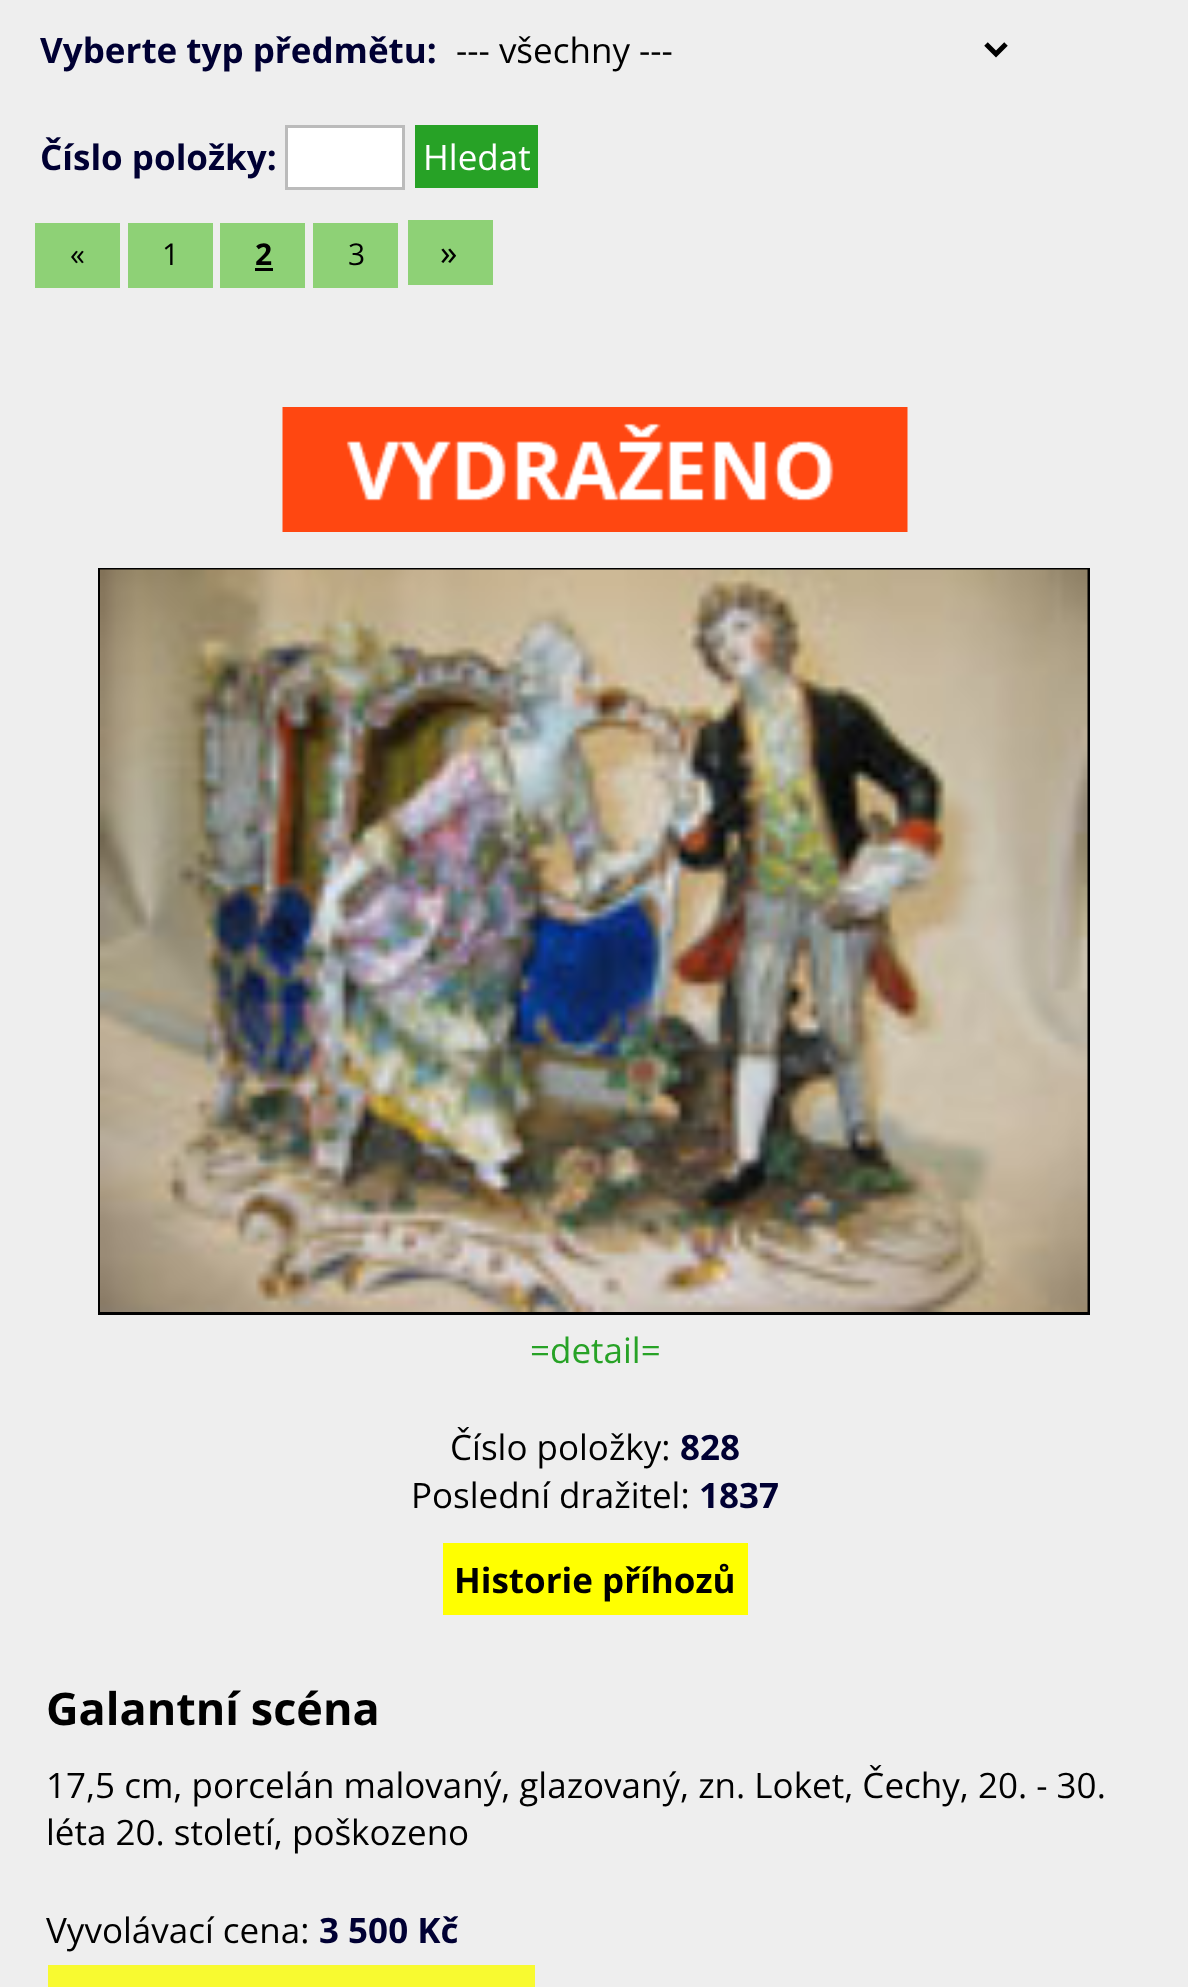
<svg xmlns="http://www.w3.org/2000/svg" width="1188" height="1987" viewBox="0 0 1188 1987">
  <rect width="100%" height="100%" fill="rgb(238,238,238)"/>
  <text x="40" y="63" font-family="Open Sans" font-size="35" font-weight="bold" fill="rgb(0,0,51)">Vyberte typ předmětu:</text>
  <path d="M986 44L996 54L1006 44" fill="none" stroke="rgb(0,0,0)" stroke-width="5"/>
  <text x="456" y="63" font-family="Open Sans" font-size="35" fill="rgb(0,0,0)">--- všechny ---</text>
  <text x="40" y="170" font-family="Open Sans" font-size="35" font-weight="bold" fill="rgb(0,0,51)">Číslo položky:</text>
  <rect x="286.5" y="126.5" width="117" height="62" fill="rgb(255,255,255)" stroke="rgb(187,187,187)" stroke-width="3"/>
  <rect x="415" y="125" width="123" height="63" fill="rgb(39,162,38)"/>
  <text x="423" y="170" font-family="Open Sans" font-size="35" fill="rgb(255,255,255)">Hledat</text>
  <rect x="35" y="223" width="85" height="65" fill="rgb(142,209,118)"/>
  <text x="70" y="265" font-family="Open Sans" font-size="30" fill="rgb(0,0,0)">«</text>
  <rect x="128" y="223" width="85" height="65" fill="rgb(142,209,118)"/>
  <text x="162" y="265" font-family="Open Sans" font-size="30" fill="rgb(0,0,0)">1</text>
  <rect x="220" y="223" width="85" height="65" fill="rgb(142,209,118)"/>
  <text x="255" y="265" font-family="Open Sans" font-size="30" font-weight="bold" fill="rgb(0,0,0)">2</text>
  <rect x="255" y="268" width="18" height="3" fill="rgb(0,0,0)"/>
  <rect x="313" y="223" width="85" height="65" fill="rgb(142,209,118)"/>
  <text x="348" y="265" font-family="Open Sans" font-size="30" fill="rgb(0,0,0)">3</text>
  <rect x="408" y="220" width="85" height="65" fill="rgb(142,209,118)"/>
  <text x="440" y="265" font-family="Open Sans" font-size="35" fill="rgb(0,0,0)">»</text>
  <image x="282" y="407" width="626" height="125" href="pic1.png"/>
  <rect x="99.5" y="569.5" width="989" height="744" fill="none" stroke="rgb(0,0,0)" stroke-width="3"/>
  <image x="100" y="569" width="988" height="743" href="pic2.png"/>
  <text x="530" y="1363" font-family="Open Sans" font-size="35" fill="rgb(39,162,38)">=detail=</text>
  <text x="450" y="1460" font-family="Open Sans" font-size="35" fill="rgb(0,0,0)">Číslo položky:</text>
  <text x="680" y="1460" font-family="Open Sans" font-size="35" font-weight="bold" fill="rgb(0,0,51)">828</text>
  <text x="411" y="1508" font-family="Open Sans" font-size="35" fill="rgb(0,0,0)">Poslední dražitel:</text>
  <text x="699" y="1508" font-family="Open Sans" font-size="35" font-weight="bold" fill="rgb(0,0,51)">1837</text>
  <rect x="443" y="1543" width="305" height="72" fill="rgb(255,255,0)"/>
  <text x="454" y="1593" font-family="Open Sans" font-size="35" font-weight="bold" fill="rgb(0,0,0)">Historie příhozů</text>
  <text x="46" y="1725" font-family="Open Sans" font-size="45" font-weight="bold" fill="rgb(0,0,0)">Galantní scéna</text>
  <g font-family="Open Sans" font-size="35" fill="rgb(0,0,0)">
    <text>
      <tspan x="46" y="1798">17,5 cm, porcelán malovaný, glazovaný, zn. Loket, Čechy, 20. - 30.</tspan>
      <tspan x="46" y="1845">léta 20. století, poškozeno</tspan>
    </text>
    <text x="46" y="1943">Vyvolávací cena:</text>
  </g>
  <text x="319" y="1943" font-family="Open Sans" font-size="35" font-weight="bold" fill="rgb(0,0,51)">3 500 Kč</text>
  <rect x="48" y="1965" width="487" height="22" fill="rgb(248,250,48)"/>
</svg>
